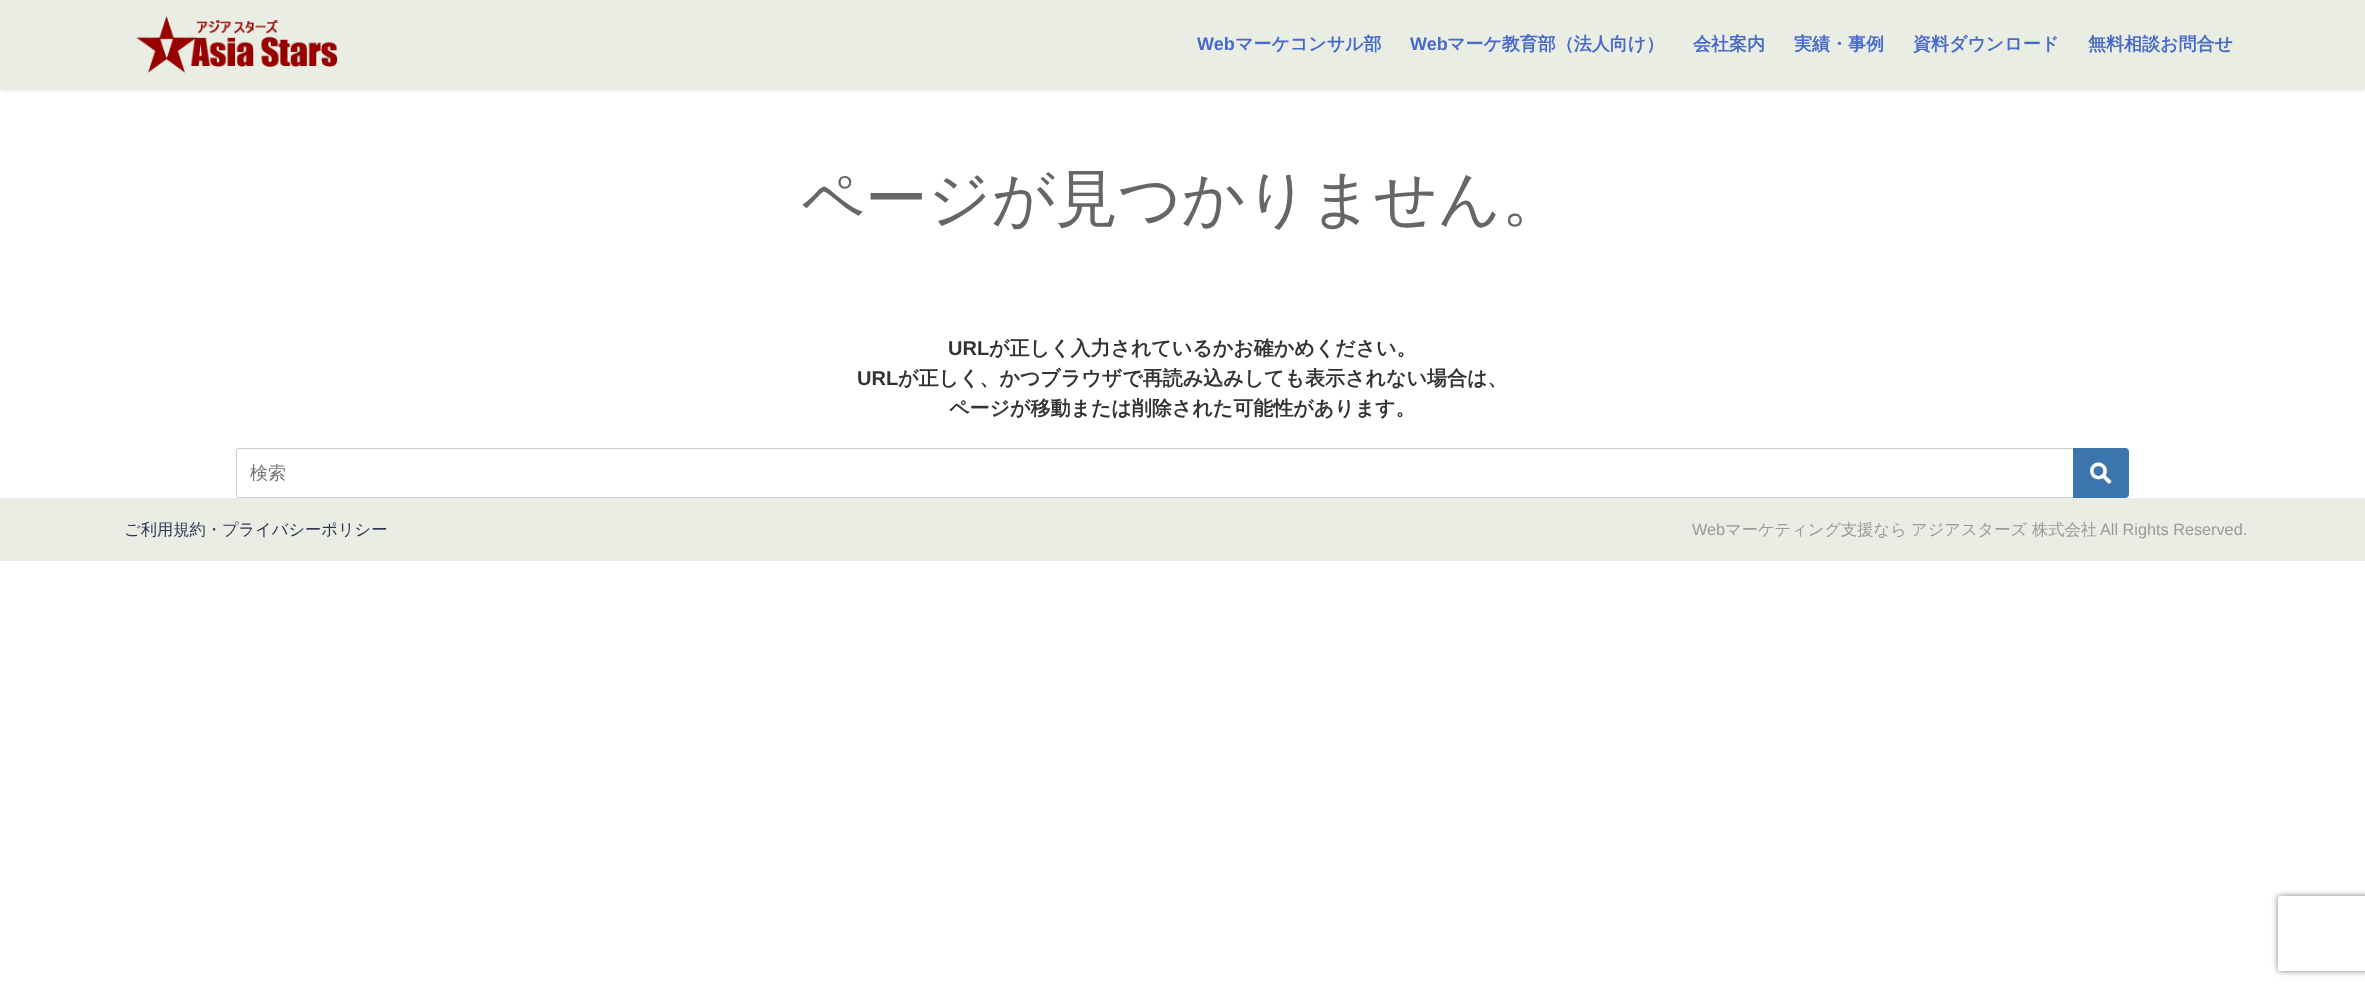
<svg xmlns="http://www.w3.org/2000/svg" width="2365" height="988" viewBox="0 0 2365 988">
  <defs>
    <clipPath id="clip1"><path d="M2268 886H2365V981H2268ZM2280.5 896H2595.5C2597 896 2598 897 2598 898.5V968.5C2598 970 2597 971 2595.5 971H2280.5C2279 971 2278 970 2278 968.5V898.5C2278 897 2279 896 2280.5 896Z" clip-rule="evenodd"/></clipPath>
  </defs>
  <rect width="100%" height="100%" fill="rgb(255,255,255)"/>
  <rect x="0" y="0" width="2365" height="89" fill="rgba(0,0,0,0.2)" filter="blur(2.5px)"/>
  <rect x="0" y="0" width="2365" height="89" fill="rgb(233,237,227)"/>
  <image x="136" y="16" width="202" height="57" href="pic1.png"/>
  <text x="1197" y="50" font-family="Liberation Sans" font-size="18" font-weight="bold" fill="rgb(72,106,201)">Web</text>
  <text x="1235" y="50" font-family="WenQuanYi Zen Hei" font-size="18" font-weight="bold" fill="rgb(72,106,201)">マーケコンサル部</text>
  <text x="1410" y="50" font-family="Liberation Sans" font-size="18" font-weight="bold" fill="rgb(72,106,201)">Web</text>
  <g font-family="WenQuanYi Zen Hei" font-size="18" font-weight="bold" fill="rgb(72,106,201)">
    <text x="1447" y="50">マーケ教育部（法人向け）</text>
    <text x="1693" y="50">会社案内</text>
    <text x="1794" y="50">実績・事例</text>
    <text x="1913" y="50">資料ダウンロード</text>
    <text x="2088" y="50">無料相談お問合せ</text>
  </g>
  <text x="801" y="220" font-family="WenQuanYi Zen Hei" font-size="62.5" font-weight="500" fill="rgb(102,102,102)">ページが見つかりません。</text>
  <text x="948" y="355" font-family="Liberation Sans" font-size="20" font-weight="bold" fill="rgb(51,51,51)">URL</text>
  <text x="989" y="355" font-family="WenQuanYi Zen Hei" font-size="20" font-weight="bold" fill="rgb(51,51,51)">が正しく入力されているかお確かめください。</text>
  <text x="857" y="385" font-family="Liberation Sans" font-size="20" font-weight="bold" fill="rgb(51,51,51)">URL</text>
  <g font-family="WenQuanYi Zen Hei" font-size="20" font-weight="bold" fill="rgb(51,51,51)">
    <text x="898" y="385">が正しく、かつブラウザで再読み込みしても表示されない場合は、</text>
    <text x="949" y="415">ページが移動または削除された可能性があります。</text>
  </g>
  <rect x="236.5" y="448.5" width="1892" height="49" rx="2" fill="none" stroke="rgb(204,204,204)"/>
  <text x="250" y="479" font-family="WenQuanYi Zen Hei" font-size="18" font-weight="500" fill="rgb(117,117,117)">検索</text>
  <path d="M2073 448H2125C2127 448 2129 450 2129 452V494C2129 496 2127 498 2125 498H2073Z" fill="rgb(60,116,173)"/>
  <image x="2090" y="462" width="22" height="22" href="pic2.png"/>
  <rect x="0" y="499" width="2365" height="62" fill="rgb(233,237,227)"/>
  <rect x="0" y="498" width="2365" height="1" fill="rgb(238,238,238)"/>
  <text x="124" y="535" font-family="WenQuanYi Zen Hei" font-size="16.25" font-weight="500" fill="rgb(51,51,85)">ご利用規約・プライバシーポリシー</text>
  <text x="1692" y="535" font-family="Liberation Sans" font-size="16.25" fill="rgb(153,153,153)">Web</text>
  <g font-family="WenQuanYi Zen Hei" font-size="16.25" font-weight="500" fill="rgb(153,153,153)">
    <text x="1725" y="535">マーケティング支援なら</text>
    <text x="1911" y="535">アジアスターズ</text>
    <text x="2032" y="535">株式会社</text>
  </g>
  <text x="2100" y="535" font-family="Liberation Sans" font-size="16.25" fill="rgb(153,153,153)">All Rights Reserved.</text>
  <g clip-path="url(#clip1)">
    <rect x="2278" y="896" width="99" height="75" rx="2.5" fill="rgb(128,128,128)" filter="blur(3px)"/>
  </g>
</svg>
